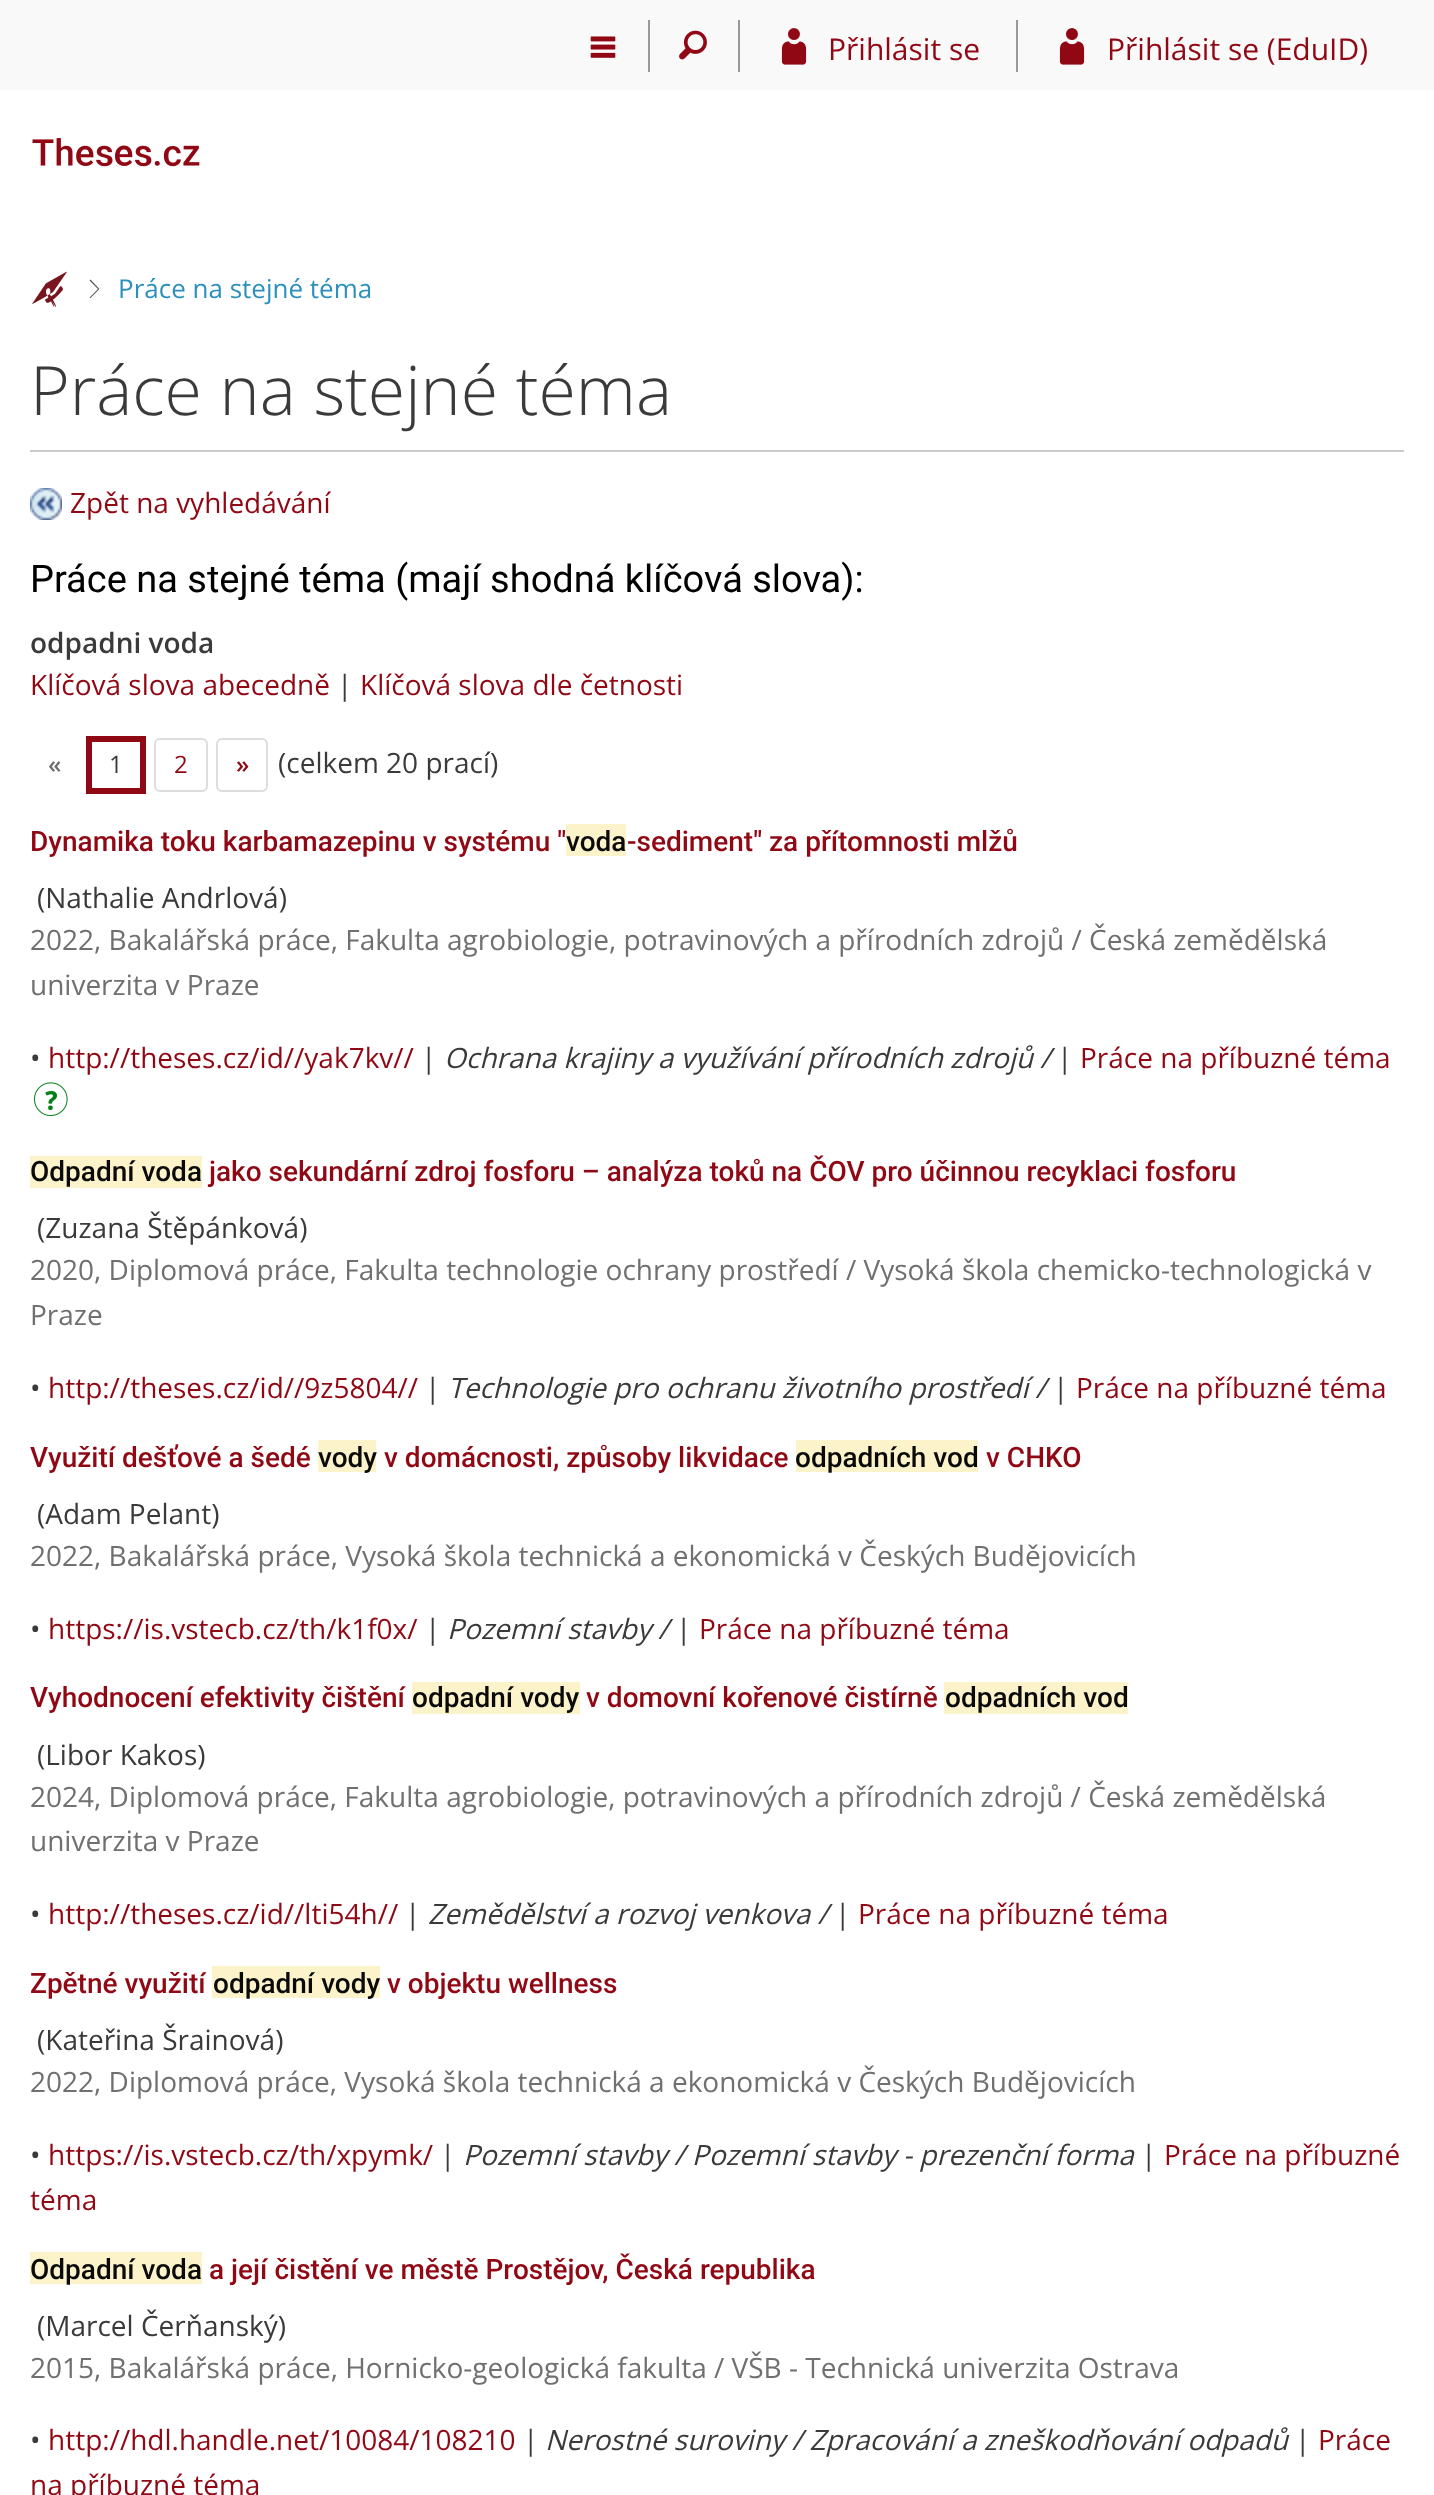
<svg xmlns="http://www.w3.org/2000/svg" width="1434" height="2495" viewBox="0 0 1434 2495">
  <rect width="100%" height="100%" fill="rgb(255,255,255)"/>
  <rect x="0" y="0" width="1434" height="90" fill="rgb(249,249,249)"/>
  <rect x="648" y="20" width="2" height="52" fill="rgb(153,153,153)"/>
  <image x="590" y="36" width="26" height="22" href="pic1.png"/>
  <rect x="738" y="20" width="2" height="52" fill="rgb(153,153,153)"/>
  <image x="679" y="30" width="28" height="30" href="pic2.png"/>
  <rect x="1016" y="20" width="2" height="52" fill="rgb(153,153,153)"/>
  <image x="781" y="28" width="26" height="37" href="pic3.png"/>
  <text x="828" y="60" font-family="Open Sans" font-size="30" fill="rgb(145,8,21)">Přihlásit se</text>
  <image x="1059" y="28" width="26" height="37" href="pic3.png"/>
  <text x="1107" y="60" font-family="Open Sans" font-size="30" fill="rgb(145,8,21)">Přihlásit se (EduID)</text>
  <image x="32" y="138" width="168" height="29" href="pic4.png"/>
  <image x="32" y="271" width="35" height="36" href="pic5.png"/>
  <path d="M90.5 298L89.5 297.5L98 289L89.5 280.5L90.5 279.5L99.5 289Z" fill="rgb(90,90,90)"/>
  <text x="118" y="298" font-family="Open Sans" font-size="26" fill="rgb(43,144,188)">Práce na stejné téma</text>
  <text x="30" y="415" font-family="Open Sans" font-size="68" font-weight="300" fill="rgb(58,58,58)">Práce na stejné téma</text>
  <rect x="30" y="450" width="1374" height="2" fill="rgb(202,202,202)"/>
  <image x="30" y="488" width="32" height="32" href="pic6.png"/>
  <text x="70" y="513" font-family="Open Sans" font-size="28" fill="rgb(145,8,21)">Zpět na vyhledávání</text>
  <text x="30" y="592" font-family="Roboto" font-size="38" fill="rgb(0,0,0)">Práce na stejné téma (mají shodná klíčová slova):</text>
  <text x="30" y="653" font-family="Open Sans" font-size="28" font-weight="600" fill="rgb(58,58,58)">odpadni voda</text>
  <text x="30" y="695" font-family="Open Sans" font-size="28" fill="rgb(145,8,21)">Klíčová slova abecedně</text>
  <text x="337" y="695" font-family="Open Sans" font-size="28" fill="rgb(58,58,58)">|</text>
  <text x="360" y="695" font-family="Open Sans" font-size="28" fill="rgb(145,8,21)">Klíčová slova dle četnosti</text>
  <text x="48" y="773" font-family="Open Sans" font-size="24" font-weight="600" fill="rgb(112,112,112)">«</text>
  <rect x="89" y="739" width="54" height="52" fill="none" stroke="rgb(145,8,21)" stroke-width="6"/>
  <text x="109" y="773" font-family="Open Sans" font-size="24" fill="rgb(58,58,58)">1</text>
  <rect x="155" y="739" width="52" height="52" rx="5" fill="none" stroke="rgb(221,221,221)" stroke-width="2"/>
  <text x="174" y="773" font-family="Open Sans" font-size="24" fill="rgb(145,8,21)">2</text>
  <rect x="217" y="739" width="50" height="52" rx="5" fill="none" stroke="rgb(221,221,221)" stroke-width="2"/>
  <text x="236" y="773" font-family="Open Sans" font-size="24" font-weight="600" fill="rgb(145,8,21)">»</text>
  <text x="278" y="773" font-family="Open Sans" font-size="28" fill="rgb(58,58,58)">(celkem 20 prací)</text>
  <text x="30" y="851" font-family="Roboto" font-size="28" font-weight="500" fill="rgb(145,8,21)">Dynamika toku karbamazepinu v systému "</text>
  <rect x="566" y="824" width="60" height="32" fill="rgb(252,243,203)"/>
  <text x="566" y="851" font-family="Roboto" font-size="28" font-weight="500" fill="rgb(10,10,10)">voda</text>
  <text x="627" y="851" font-family="Roboto" font-size="28" font-weight="500" fill="rgb(145,8,21)">-sediment" za přítomnosti mlžů</text>
  <text x="37" y="908" font-family="Open Sans" font-size="28" fill="rgb(58,58,58)">(Nathalie Andrlová)</text>
  <g font-family="Open Sans" font-size="28" fill="rgb(112,112,112)">
    <text>
      <tspan x="30" y="950">2022, Bakalářská práce, Fakulta agrobiologie, potravinových a přírodních zdrojů / Česká zemědělská</tspan>
      <tspan x="30" y="995">univerzita v Praze</tspan>
    </text>
  </g>
  <text x="30" y="1068" font-family="Open Sans" font-size="28" fill="rgb(58,58,58)">•</text>
  <text x="48" y="1068" font-family="Open Sans" font-size="28" fill="rgb(145,8,21)">http://theses.cz/id//yak7kv//</text>
  <text x="421" y="1068" font-family="Open Sans" font-size="28" fill="rgb(58,58,58)">|</text>
  <text x="444" y="1068" font-family="Open Sans" font-size="28" font-style="italic" fill="rgb(58,58,58)">Ochrana krajiny a využívání přírodních zdrojů /</text>
  <text x="1057" y="1068" font-family="Open Sans" font-size="28" fill="rgb(58,58,58)">|</text>
  <text x="1080" y="1068" font-family="Open Sans" font-size="28" fill="rgb(145,8,21)">Práce na příbuzné téma</text>
  <image x="34" y="1082" width="34" height="34" href="pic7.png"/>
  <rect x="30" y="1156" width="172" height="32" fill="rgb(252,243,203)"/>
  <text x="30" y="1181" font-family="Roboto" font-size="28" font-weight="500" fill="rgb(10,10,10)">Odpadní voda</text>
  <text x="209" y="1181" font-family="Roboto" font-size="28" font-weight="500" fill="rgb(145,8,21)">jako sekundární zdroj fosforu – analýza toků na ČOV pro účinnou recyklaci fosforu</text>
  <text x="37" y="1238" font-family="Open Sans" font-size="28" fill="rgb(58,58,58)">(Zuzana Štěpánková)</text>
  <g font-family="Open Sans" font-size="28" fill="rgb(112,112,112)">
    <text>
      <tspan x="30" y="1280">2020, Diplomová práce, Fakulta technologie ochrany prostředí / Vysoká škola chemicko-technologická v</tspan>
      <tspan x="30" y="1325">Praze</tspan>
    </text>
  </g>
  <text x="30" y="1398" font-family="Open Sans" font-size="28" fill="rgb(58,58,58)">•</text>
  <text x="48" y="1398" font-family="Open Sans" font-size="28" fill="rgb(145,8,21)">http://theses.cz/id//9z5804//</text>
  <text x="425" y="1398" font-family="Open Sans" font-size="28" fill="rgb(58,58,58)">|</text>
  <text x="448" y="1398" font-family="Open Sans" font-size="28" font-style="italic" fill="rgb(58,58,58)">Technologie pro ochranu životního prostředí /</text>
  <text x="1053" y="1398" font-family="Open Sans" font-size="28" fill="rgb(58,58,58)">|</text>
  <text x="1076" y="1398" font-family="Open Sans" font-size="28" fill="rgb(145,8,21)">Práce na příbuzné téma</text>
  <text x="30" y="1467" font-family="Roboto" font-size="28" font-weight="500" fill="rgb(145,8,21)">Využití dešťové a šedé</text>
  <rect x="318" y="1440" width="58" height="32" fill="rgb(252,243,203)"/>
  <text x="318" y="1467" font-family="Roboto" font-size="28" font-weight="500" fill="rgb(10,10,10)">vody</text>
  <text x="384" y="1467" font-family="Roboto" font-size="28" font-weight="500" fill="rgb(145,8,21)">v domácnosti, způsoby likvidace</text>
  <rect x="796" y="1440" width="182" height="32" fill="rgb(252,243,203)"/>
  <text x="795" y="1467" font-family="Roboto" font-size="28" font-weight="500" fill="rgb(10,10,10)">odpadních vod</text>
  <text x="986" y="1467" font-family="Roboto" font-size="28" font-weight="500" fill="rgb(145,8,21)">v CHKO</text>
  <text x="37" y="1524" font-family="Open Sans" font-size="28" fill="rgb(58,58,58)">(Adam Pelant)</text>
  <text x="30" y="1566" font-family="Open Sans" font-size="28" fill="rgb(112,112,112)">2022, Bakalářská práce, Vysoká škola technická a ekonomická v Českých Budějovicích</text>
  <text x="30" y="1639" font-family="Open Sans" font-size="28" fill="rgb(58,58,58)">•</text>
  <text x="48" y="1639" font-family="Open Sans" font-size="28" fill="rgb(145,8,21)">https://is.vstecb.cz/th/k1f0x/</text>
  <text x="425" y="1639" font-family="Open Sans" font-size="28" fill="rgb(58,58,58)">|</text>
  <text x="447" y="1639" font-family="Open Sans" font-size="28" font-style="italic" fill="rgb(58,58,58)">Pozemní stavby /</text>
  <text x="676" y="1639" font-family="Open Sans" font-size="28" fill="rgb(58,58,58)">|</text>
  <text x="699" y="1639" font-family="Open Sans" font-size="28" fill="rgb(145,8,21)">Práce na příbuzné téma</text>
  <text x="30" y="1707" font-family="Roboto" font-size="28" font-weight="500" fill="rgb(145,8,21)">Vyhodnocení efektivity čištění</text>
  <rect x="412" y="1682" width="168" height="32" fill="rgb(252,243,203)"/>
  <text x="412" y="1707" font-family="Roboto" font-size="28" font-weight="500" fill="rgb(10,10,10)">odpadní vody</text>
  <text x="586" y="1707" font-family="Roboto" font-size="28" font-weight="500" fill="rgb(145,8,21)">v domovní kořenové čistírně</text>
  <rect x="944" y="1682" width="184" height="32" fill="rgb(252,243,203)"/>
  <text x="945" y="1707" font-family="Roboto" font-size="28" font-weight="500" fill="rgb(10,10,10)">odpadních vod</text>
  <text x="37" y="1765" font-family="Open Sans" font-size="28" fill="rgb(58,58,58)">(Libor Kakos)</text>
  <g font-family="Open Sans" font-size="28" fill="rgb(112,112,112)">
    <text>
      <tspan x="30" y="1807">2024, Diplomová práce, Fakulta agrobiologie, potravinových a přírodních zdrojů / Česká zemědělská</tspan>
      <tspan x="30" y="1851">univerzita v Praze</tspan>
    </text>
  </g>
  <text x="30" y="1924" font-family="Open Sans" font-size="28" fill="rgb(58,58,58)">•</text>
  <text x="48" y="1924" font-family="Open Sans" font-size="28" fill="rgb(145,8,21)">http://theses.cz/id//lti54h//</text>
  <text x="405" y="1924" font-family="Open Sans" font-size="28" fill="rgb(58,58,58)">|</text>
  <text x="428" y="1924" font-family="Open Sans" font-size="28" font-style="italic" fill="rgb(58,58,58)">Zemědělství a rozvoj venkova /</text>
  <text x="835" y="1924" font-family="Open Sans" font-size="28" fill="rgb(58,58,58)">|</text>
  <text x="858" y="1924" font-family="Open Sans" font-size="28" fill="rgb(145,8,21)">Práce na příbuzné téma</text>
  <text x="30" y="1993" font-family="Roboto" font-size="28" font-weight="500" fill="rgb(145,8,21)">Zpětné využití</text>
  <rect x="212" y="1966" width="168" height="32" fill="rgb(252,243,203)"/>
  <text x="213" y="1993" font-family="Roboto" font-size="28" font-weight="500" fill="rgb(10,10,10)">odpadní vody</text>
  <text x="387" y="1993" font-family="Roboto" font-size="28" font-weight="500" fill="rgb(145,8,21)">v objektu wellness</text>
  <text x="37" y="2050" font-family="Open Sans" font-size="28" fill="rgb(58,58,58)">(Kateřina Šrainová)</text>
  <text x="30" y="2092" font-family="Open Sans" font-size="28" fill="rgb(112,112,112)">2022, Diplomová práce, Vysoká škola technická a ekonomická v Českých Budějovicích</text>
  <text x="30" y="2165" font-family="Open Sans" font-size="28" fill="rgb(58,58,58)">•</text>
  <text x="48" y="2165" font-family="Open Sans" font-size="28" fill="rgb(145,8,21)">https://is.vstecb.cz/th/xpymk/</text>
  <text x="440" y="2165" font-family="Open Sans" font-size="28" fill="rgb(58,58,58)">|</text>
  <text x="463" y="2165" font-family="Open Sans" font-size="28" font-style="italic" fill="rgb(58,58,58)">Pozemní stavby / Pozemní stavby - prezenční forma</text>
  <text x="1141" y="2165" font-family="Open Sans" font-size="28" fill="rgb(58,58,58)">|</text>
  <g font-family="Open Sans" font-size="28" fill="rgb(145,8,21)">
    <text x="1164" y="2165">Práce na příbuzné</text>
    <text x="30" y="2210">téma</text>
  </g>
  <rect x="30" y="2252" width="172" height="32" fill="rgb(252,243,203)"/>
  <text x="30" y="2279" font-family="Roboto" font-size="28" font-weight="500" fill="rgb(10,10,10)">Odpadní voda</text>
  <text x="209" y="2279" font-family="Roboto" font-size="28" font-weight="500" fill="rgb(145,8,21)">a její čistění ve městě Prostějov, Česká republika</text>
  <text x="37" y="2336" font-family="Open Sans" font-size="28" fill="rgb(58,58,58)">(Marcel Čerňanský)</text>
  <text x="30" y="2378" font-family="Open Sans" font-size="28" fill="rgb(112,112,112)">2015, Bakalářská práce, Hornicko-geologická fakulta / VŠB - Technická univerzita Ostrava</text>
  <text x="30" y="2450" font-family="Open Sans" font-size="28" fill="rgb(58,58,58)">•</text>
  <text x="48" y="2450" font-family="Open Sans" font-size="28" fill="rgb(145,8,21)">http://hdl.handle.net/10084/108210</text>
  <text x="523" y="2450" font-family="Open Sans" font-size="28" fill="rgb(58,58,58)">|</text>
  <text x="545" y="2450" font-family="Open Sans" font-size="28" font-style="italic" fill="rgb(58,58,58)">Nerostné suroviny / Zpracování a zneškodňování odpadů</text>
  <text x="1295" y="2450" font-family="Open Sans" font-size="28" fill="rgb(58,58,58)">|</text>
  <g font-family="Open Sans" font-size="28" fill="rgb(145,8,21)">
    <text x="1318" y="2450">Práce</text>
    <text x="30" y="2495">na příbuzné téma</text>
  </g>
</svg>
